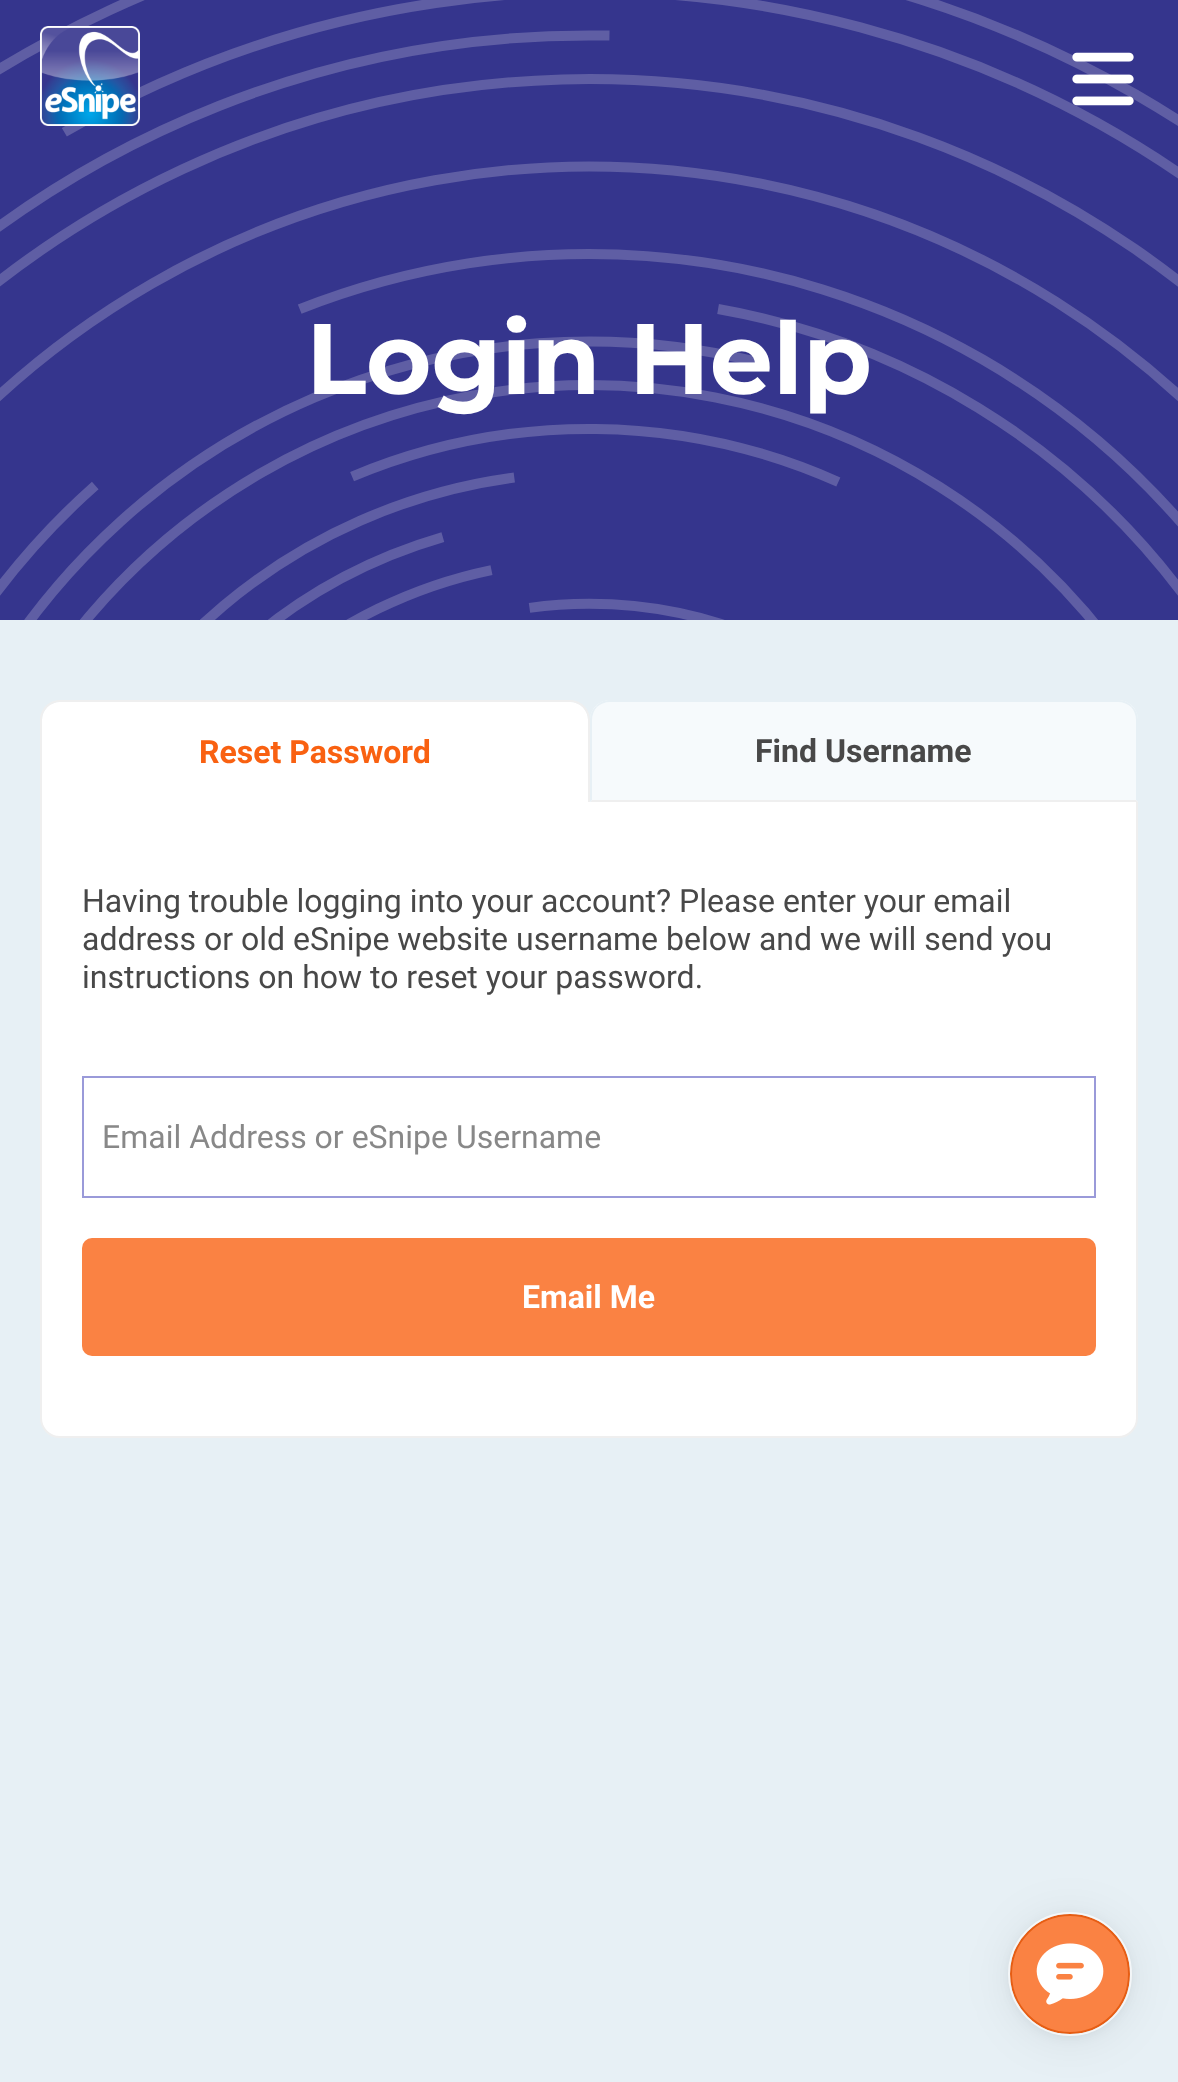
<svg xmlns="http://www.w3.org/2000/svg" width="1178" height="2082" viewBox="0 0 1178 2082">
  <rect width="100%" height="100%" fill="rgb(53,53,141)"/>
  <image x="0" y="0" width="1178" height="620" href="pic3.png"/>
  <image x="40" y="26" width="100" height="100" href="pic1.png"/>
  <image x="1072" y="52" width="62" height="54" href="pic2.png"/>
  <text x="306" y="394" font-family="Montserrat" font-size="100" font-weight="bold" fill="rgb(255,255,255)">Login Help</text>
  <rect x="0" y="620" width="1178" height="1462" fill="rgb(231,240,245)"/>
  <path d="M41 801H1137V1418C1137 1428.5 1128.5 1437 1118 1437H60C49.5 1437 41 1428.5 41 1418Z" fill="rgb(255,255,255)" stroke="rgb(239,239,239)" stroke-width="2"/>
  <path d="M60 702H570C580 702 588 710 588 720V802H42V720C42 710 50 702 60 702Z" fill="rgb(255,255,255)"/>
  <path d="M60 700H570C581 700 590 709 590 720V802H40V720C40 709 49 700 60 700ZM60 702H570C580 702 588 710 588 720V802H42V720C42 710 50 702 60 702Z" fill="rgb(239,239,239)" fill-rule="evenodd"/>
  <text x="199" y="763" font-family="Roboto" font-size="32" font-weight="bold" fill="rgb(249,97,17)">Reset Password</text>
  <path d="M610 700H1118C1129 700 1138 709 1138 720V802H590V720C590 709 599 700 610 700Z" fill="rgb(246,250,252)"/>
  <path d="M610 700C604 700 600 702 596 706L597 707C600 704 605 702 610 702H1118C1123 702 1128 704 1131 707L1132 706C1128 702 1124 700 1118 700Z" fill="rgb(231,240,245)"/>
  <path d="M1138 802V720C1138 714 1136 710 1132 706L1131 707C1134 710 1136 715 1136 720V800Z" fill="rgb(231,240,245)"/>
  <path d="M1138 802L1136 800H592L590 802Z" fill="rgb(239,239,239)"/>
  <path d="M590 802L592 800V720C592 715 594 710 597 707L596 706C592 710 590 714 590 720Z" fill="rgb(231,240,245)"/>
  <text x="755" y="762" font-family="Roboto" font-size="32" font-weight="bold" fill="rgb(72,72,72)">Find Username</text>
  <g font-family="Roboto" font-size="32" fill="rgb(72,72,72)">
    <text>
      <tspan x="82" y="912">Having trouble logging into your account? Please enter your email</tspan>
      <tspan x="82" y="950">address or old eSnipe website username below and we will send you</tspan>
      <tspan x="82" y="988">instructions on how to reset your password.</tspan>
    </text>
  </g>
  <rect x="83" y="1077" width="1012" height="120" fill="none" stroke="rgb(154,154,217)" stroke-width="2"/>
  <text x="102" y="1148" font-family="Roboto" font-size="32" fill="rgb(136,136,136)">Email Address or eSnipe Username</text>
  <rect x="82" y="1238" width="1014" height="118" rx="10" fill="rgb(250,130,67)"/>
  <text x="522" y="1308" font-family="Roboto" font-size="32" font-weight="bold" fill="rgb(255,255,255)">Email Me</text>
  <rect x="1010" y="1918" width="120" height="120" rx="60" fill="rgba(0,0,0,0.08)" filter="blur(24px)"/>
  <rect x="1010" y="1916" width="120" height="120" rx="60" fill="rgba(0,0,0,0.06)" filter="blur(6px)"/>
  <circle cx="1070" cy="1974" r="59" fill="rgb(250,130,67)" stroke="rgb(230,93,19)" stroke-width="2"/>
  <image x="1036" y="1943" width="68" height="62" href="pic4.png"/>
  <circle cx="1070" cy="1974" r="61" fill="none" stroke="rgba(255,255,255,0.7)" stroke-width="2"/>
</svg>
